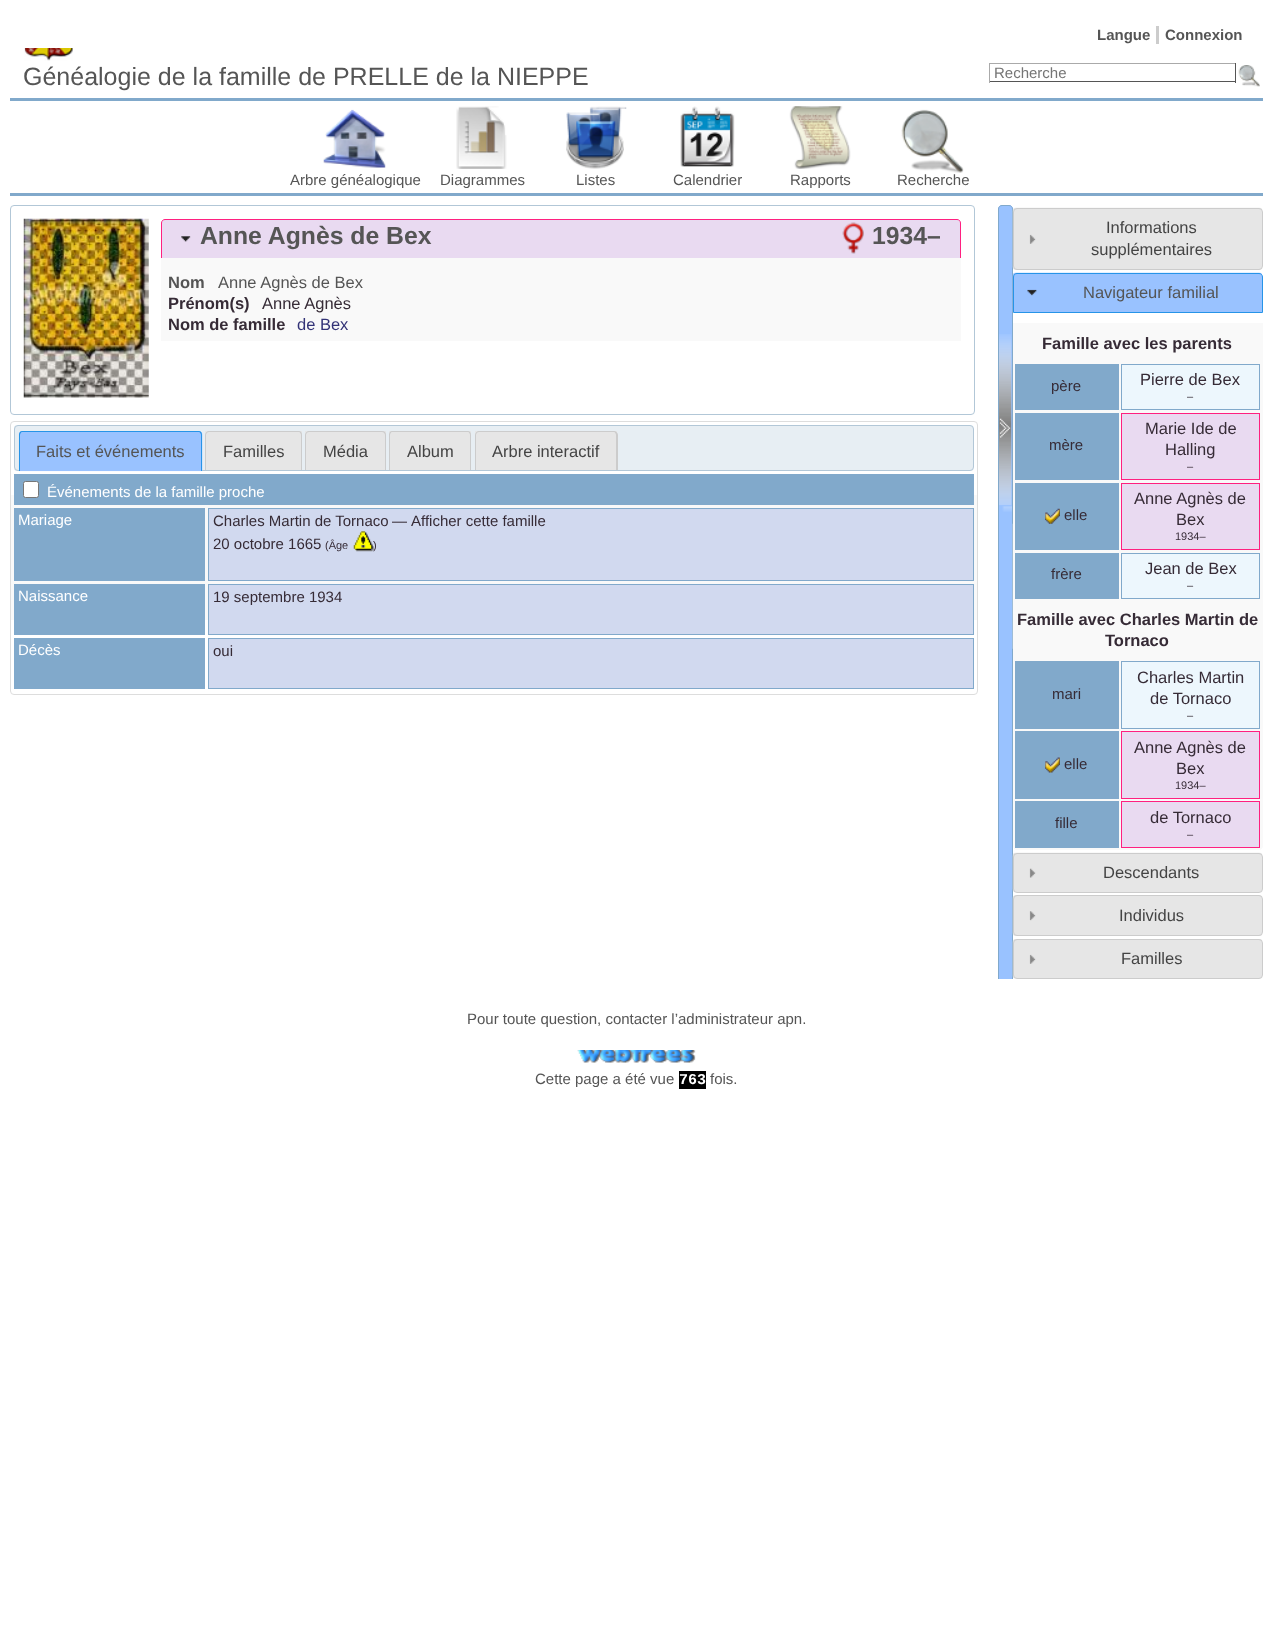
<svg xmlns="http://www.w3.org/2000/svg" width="1272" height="1634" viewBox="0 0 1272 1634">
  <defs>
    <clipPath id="clip1"><rect x="975" y="205" width="38" height="774"/></clipPath>
  </defs>
  <rect width="100%" height="100%" fill="rgb(255,255,255)"/>
  <g font-family="Liberation Sans" font-size="15" font-weight="bold" fill="rgb(85,85,85)">
    <text x="1097" y="40">Langue</text>
    <text x="1165" y="40">Connexion</text>
  </g>
  <rect x="1156" y="26" width="3" height="18" fill="rgb(204,204,204)"/>
  <image x="24" y="48" width="49" height="13" href="pic1.png"/>
  <text x="23" y="85" font-family="Liberation Sans" font-size="25" fill="rgb(85,85,85)">Généalogie de la famille de PRELLE de la NIEPPE</text>
  <rect x="989" y="63" width="247" height="1" fill="rgb(170,170,170)"/>
  <rect x="1235" y="63" width="1" height="20" fill="rgb(85,85,85)"/>
  <rect x="989" y="81" width="247" height="1" fill="rgb(85,85,85)"/>
  <rect x="989" y="63" width="1" height="20" fill="rgb(170,170,170)"/>
  <text x="994" y="78" font-family="Liberation Sans" font-size="15" fill="rgb(117,117,117)">Recherche</text>
  <image x="1238" y="65" width="22" height="22" href="pic2.png"/>
  <rect x="10" y="98" width="1253" height="3" fill="rgb(129,169,203)"/>
  <rect x="10" y="193" width="1253" height="3" fill="rgb(129,169,203)"/>
  <image x="323" y="109" width="63" height="59" href="pic3.png"/>
  <text x="290" y="185" font-family="Liberation Sans" font-size="15" fill="rgb(85,85,85)">Arbre généalogique</text>
  <image x="456" y="106" width="51" height="63" href="pic4.png"/>
  <text x="440" y="185" font-family="Liberation Sans" font-size="15" fill="rgb(85,85,85)">Diagrammes</text>
  <image x="566" y="106" width="61" height="63" href="pic5.png"/>
  <text x="576" y="185" font-family="Liberation Sans" font-size="15" fill="rgb(85,85,85)">Listes</text>
  <image x="680" y="106" width="55" height="61" href="pic6.png"/>
  <text x="673" y="185" font-family="Liberation Sans" font-size="15" fill="rgb(85,85,85)">Calendrier</text>
  <image x="789" y="106" width="62" height="63" href="pic7.png"/>
  <text x="790" y="185" font-family="Liberation Sans" font-size="15" fill="rgb(85,85,85)">Rapports</text>
  <image x="901" y="109" width="63" height="64" href="pic8.png"/>
  <text x="897" y="185" font-family="Liberation Sans" font-size="15" fill="rgb(85,85,85)">Recherche</text>
  <rect x="10.5" y="205.5" width="964" height="209" rx="3.5" fill="none" stroke="rgb(178,199,215)"/>
  <image x="23" y="218" width="126" height="180" href="pic9.png"/>
  <path d="M165 219.5H957C959 219.5 960.5 221 960.5 223V258.5H161.5V223C161.5 221 163 219.5 165 219.5Z" fill="rgb(233,218,241)" stroke="rgb(255,32,128)"/>
  <image x="181" y="236" width="10" height="6" href="pic10.png"/>
  <text x="200" y="244" font-family="Liberation Sans" font-size="24.75" font-weight="bold" fill="rgb(85,85,85)">Anne Agnès de Bex</text>
  <image x="842" y="222" width="22" height="32" href="pic11.png"/>
  <text x="872" y="244" font-family="Liberation Sans" font-size="24.75" font-weight="bold" fill="rgb(85,85,85)">1934–</text>
  <rect x="161" y="258" width="800" height="83" fill="rgb(249,249,249)"/>
  <text x="168" y="288" font-family="Liberation Sans" font-size="16.5" font-weight="bold" fill="rgb(85,85,85)">Nom</text>
  <text x="218" y="288" font-family="Liberation Sans" font-size="16.5" fill="rgb(85,85,85)">Anne Agnès de Bex</text>
  <text x="168" y="309" font-family="Liberation Sans" font-size="16.5" font-weight="bold" fill="rgb(54,43,54)">Prénom(s)</text>
  <text x="262" y="309" font-family="Liberation Sans" font-size="16.5" fill="rgb(54,43,54)">Anne Agnès</text>
  <text x="168" y="330" font-family="Liberation Sans" font-size="16.5" font-weight="bold" fill="rgb(54,43,54)">Nom de famille</text>
  <text x="297" y="330" font-family="Liberation Sans" font-size="16.5" fill="rgb(51,51,119)">de Bex</text>
  <rect x="11" y="495" width="966" height="125" fill="rgb(249,249,249)"/>
  <rect x="10.5" y="421.5" width="967" height="273" rx="3.5" fill="none" stroke="rgb(221,221,221)"/>
  <image x="14" y="425" width="960" height="46" href="pic12.png"/>
  <rect x="14.5" y="425.5" width="959" height="45" rx="3.5" fill="none" stroke="rgb(178,199,215)"/>
  <image x="18" y="431" width="185" height="41" href="pic13.png"/>
  <path d="M22 431H199C201 431 202 433 202 435V471H19V435C19 433 20 431 22 431ZM22 432H199C200 432 201 434 201 435V471H20V435C20 434 21 432 22 432Z" fill="rgb(38,148,232)" fill-rule="evenodd"/>
  <text x="36" y="457" font-family="Liberation Sans" font-size="16.5" fill="rgb(85,85,85)">Faits et événements</text>
  <rect x="205" y="431" width="97" height="39" fill="rgb(230,230,230)"/>
  <path d="M209 431H299C301 431 302 433 302 435V470H205V435C205 433 207 431 209 431ZM209 432H299C300 432 301 434 301 435V470H206V435C206 434 207 432 209 432Z" fill="rgb(204,204,204)" fill-rule="evenodd"/>
  <text x="223" y="457" font-family="Liberation Sans" font-size="16.5" fill="rgb(68,68,68)">Familles</text>
  <rect x="305" y="431" width="81" height="39" fill="rgb(230,230,230)"/>
  <path d="M309 431H382C385 431 386 433 386 435V470H305V435C305 433 307 431 309 431ZM309 432H382C384 432 385 434 385 435V470H306V435C306 434 307 432 309 432Z" fill="rgb(204,204,204)" fill-rule="evenodd"/>
  <text x="323" y="457" font-family="Liberation Sans" font-size="16.5" fill="rgb(68,68,68)">Média</text>
  <rect x="389" y="431" width="82" height="39" fill="rgb(230,230,230)"/>
  <path d="M392 431H468C470 431 471 433 471 435V470H389V435C389 433 390 431 392 431ZM392 432H468C469 432 470 434 470 435V470H390V435C390 434 391 432 392 432Z" fill="rgb(204,204,204)" fill-rule="evenodd"/>
  <text x="407" y="457" font-family="Liberation Sans" font-size="16.5" fill="rgb(68,68,68)">Album</text>
  <rect x="475" y="431" width="142" height="39" fill="rgb(230,230,230)"/>
  <path d="M479 431H614C616 431 618 433 618 435V470H475V435C475 433 477 431 479 431ZM479 432H614C615 432 616 434 616 435V470H476V435C476 434 477 432 479 432Z" fill="rgb(204,204,204)" fill-rule="evenodd"/>
  <text x="492" y="457" font-family="Liberation Sans" font-size="16.5" fill="rgb(68,68,68)">Arbre interactif</text>
  <rect x="14" y="474" width="960" height="31" fill="rgb(129,169,203)"/>
  <rect x="23.5" y="481.5" width="15" height="16" rx="2" fill="rgb(255,255,255)" stroke="rgb(118,118,118)"/>
  <text x="47" y="497" font-family="Liberation Sans" font-size="15" fill="rgb(255,255,255)">Événements de la famille proche</text>
  <rect x="14" y="508" width="191" height="73" fill="rgb(129,169,203)"/>
  <text x="18" y="525" font-family="Liberation Sans" font-size="15" fill="rgb(255,255,255)">Mariage</text>
  <rect x="208.5" y="508.5" width="765" height="72" fill="rgb(209,217,239)" stroke="rgb(129,169,203)"/>
  <g font-family="Liberation Sans" font-size="15" fill="rgb(54,43,54)">
    <text x="213" y="526">Charles Martin de Tornaco</text>
    <text x="392" y="526">—</text>
    <text x="411" y="526">Afficher cette famille</text>
    <text x="213" y="549">20 octobre 1665</text>
  </g>
  <text x="325" y="549" font-family="Liberation Sans" font-size="11" fill="rgb(54,43,54)">(Âge</text>
  <image x="353" y="531" width="21" height="21" href="pic14.png"/>
  <text x="373" y="549" font-family="Liberation Sans" font-size="11" fill="rgb(54,43,54)">)</text>
  <rect x="14" y="584" width="191" height="51" fill="rgb(129,169,203)"/>
  <text x="18" y="601" font-family="Liberation Sans" font-size="15" fill="rgb(255,255,255)">Naissance</text>
  <rect x="208.5" y="584.5" width="765" height="50" fill="rgb(209,217,239)" stroke="rgb(129,169,203)"/>
  <text x="213" y="602" font-family="Liberation Sans" font-size="15" fill="rgb(54,43,54)">19 septembre 1934</text>
  <rect x="14" y="638" width="191" height="51" fill="rgb(129,169,203)"/>
  <text x="18" y="655" font-family="Liberation Sans" font-size="15" fill="rgb(255,255,255)">Décès</text>
  <rect x="208.5" y="638.5" width="765" height="50" fill="rgb(209,217,239)" stroke="rgb(129,169,203)"/>
  <text x="213" y="656" font-family="Liberation Sans" font-size="15" fill="rgb(54,43,54)">oui</text>
  <path d="M1002 205H1009C1011 205 1013 207 1013 209V979H998V209C998 207 1000 205 1002 205Z" fill="rgb(153,194,255)"/>
  <image x="999" y="334" width="13" height="178" href="pic15.png"/>
  <g clip-path="url(#clip1)">
    <path d="M1002 205.5H1009C1011 205.5 1012.5 207 1012.5 209V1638.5H998.5V209C998.5 207 1000 205.5 1002 205.5Z" fill="none" stroke="rgb(129,169,203)"/>
  </g>
  <image x="1012" y="207" width="250" height="63" href="pic16.png"/>
  <rect x="1013.5" y="208.5" width="249" height="61" rx="3.5" fill="none" stroke="rgb(204,204,204)"/>
  <text x="1106" y="233" font-family="Liberation Sans" font-size="16.5" fill="rgb(68,68,68)">Informations</text>
  <image x="1029" y="234" width="7" height="10" href="pic17.png"/>
  <text x="1091" y="255" font-family="Liberation Sans" font-size="16.5" fill="rgb(68,68,68)">supplémentaires</text>
  <image x="1012" y="272" width="251" height="40" href="pic18.png"/>
  <path d="M1017 273.5H1259C1261 273.5 1262.5 275 1262.5 277V312.5H1013.5V277C1013.5 275 1015 273.5 1017 273.5Z" fill="none" stroke="rgb(38,148,232)"/>
  <image x="1027" y="289" width="10" height="7" href="pic19.png"/>
  <text x="1083" y="298" font-family="Liberation Sans" font-size="16.5" fill="rgb(85,85,85)">Navigateur familial</text>
  <path d="M1013 323H1263V846C1263 848 1261 850 1259 850H1017C1015 850 1013 848 1013 846Z" fill="rgb(249,249,249)"/>
  <image x="1012" y="523" width="1" height="126" href="pic20.png"/>
  <text x="1042" y="349" font-family="Liberation Sans" font-size="16.5" font-weight="bold" fill="rgb(54,43,54)">Famille avec les parents</text>
  <rect x="1015" y="364" width="104" height="46" fill="rgb(129,169,203)"/>
  <text x="1051" y="391" font-family="Liberation Sans" font-size="15" fill="rgb(54,43,54)">père</text>
  <rect x="1121.5" y="364.5" width="138" height="45" fill="rgb(237,247,253)" stroke="rgb(129,169,203)"/>
  <text x="1140" y="385" font-family="Liberation Sans" font-size="16.5" fill="rgb(54,43,54)">Pierre de Bex</text>
  <text x="1187" y="400" font-family="Liberation Sans" font-size="11" fill="rgb(54,43,54)">–</text>
  <rect x="1015" y="413" width="104" height="67" fill="rgb(129,169,203)"/>
  <text x="1049" y="450" font-family="Liberation Sans" font-size="15" fill="rgb(54,43,54)">mère</text>
  <rect x="1121.5" y="413.5" width="138" height="66" fill="rgb(233,218,241)" stroke="rgb(255,32,128)"/>
  <g font-family="Liberation Sans" font-size="16.5" fill="rgb(54,43,54)">
    <text x="1145" y="434">Marie Ide de</text>
    <text x="1165" y="455">Halling</text>
  </g>
  <text x="1187" y="470" font-family="Liberation Sans" font-size="11" fill="rgb(54,43,54)">–</text>
  <rect x="1015" y="483" width="104" height="67" fill="rgb(129,169,203)"/>
  <image x="1045" y="508" width="15" height="16" href="pic21.png"/>
  <text x="1064" y="520" font-family="Liberation Sans" font-size="15" fill="rgb(54,43,54)">elle</text>
  <rect x="1121.5" y="483.5" width="138" height="66" fill="rgb(233,218,241)" stroke="rgb(255,32,128)"/>
  <g font-family="Liberation Sans" font-size="16.5" fill="rgb(54,43,54)">
    <text x="1134" y="504">Anne Agnès de</text>
    <text x="1176" y="525">Bex</text>
  </g>
  <text x="1175" y="540" font-family="Liberation Sans" font-size="11" fill="rgb(54,43,54)">1934–</text>
  <rect x="1015" y="553" width="104" height="46" fill="rgb(129,169,203)"/>
  <text x="1051" y="579" font-family="Liberation Sans" font-size="15" fill="rgb(54,43,54)">frère</text>
  <rect x="1121.5" y="553.5" width="138" height="45" fill="rgb(237,247,253)" stroke="rgb(129,169,203)"/>
  <text x="1145" y="574" font-family="Liberation Sans" font-size="16.5" fill="rgb(54,43,54)">Jean de Bex</text>
  <text x="1187" y="589" font-family="Liberation Sans" font-size="11" fill="rgb(54,43,54)">–</text>
  <g font-family="Liberation Sans" font-size="16.5" font-weight="bold" fill="rgb(54,43,54)">
    <text x="1017" y="625">Famille avec Charles Martin de</text>
    <text x="1105" y="646">Tornaco</text>
  </g>
  <rect x="1015" y="661" width="104" height="68" fill="rgb(129,169,203)"/>
  <text x="1052" y="699" font-family="Liberation Sans" font-size="15" fill="rgb(54,43,54)">mari</text>
  <rect x="1121.5" y="661.5" width="138" height="67" fill="rgb(237,247,253)" stroke="rgb(129,169,203)"/>
  <g font-family="Liberation Sans" font-size="16.5" fill="rgb(54,43,54)">
    <text x="1137" y="683">Charles Martin</text>
    <text x="1150" y="704">de Tornaco</text>
  </g>
  <text x="1187" y="719" font-family="Liberation Sans" font-size="11" fill="rgb(54,43,54)">–</text>
  <rect x="1015" y="731" width="104" height="68" fill="rgb(129,169,203)"/>
  <image x="1045" y="757" width="15" height="16" href="pic22.png"/>
  <text x="1064" y="769" font-family="Liberation Sans" font-size="15" fill="rgb(54,43,54)">elle</text>
  <rect x="1121.5" y="731.5" width="138" height="67" fill="rgb(233,218,241)" stroke="rgb(255,32,128)"/>
  <g font-family="Liberation Sans" font-size="16.5" fill="rgb(54,43,54)">
    <text x="1134" y="753">Anne Agnès de</text>
    <text x="1176" y="774">Bex</text>
  </g>
  <text x="1175" y="789" font-family="Liberation Sans" font-size="11" fill="rgb(54,43,54)">1934–</text>
  <rect x="1015" y="801" width="104" height="47" fill="rgb(129,169,203)"/>
  <text x="1055" y="828" font-family="Liberation Sans" font-size="15" fill="rgb(54,43,54)">fille</text>
  <rect x="1121.5" y="801.5" width="138" height="46" fill="rgb(233,218,241)" stroke="rgb(255,32,128)"/>
  <text x="1150" y="823" font-family="Liberation Sans" font-size="16.5" fill="rgb(54,43,54)">de Tornaco</text>
  <text x="1187" y="838" font-family="Liberation Sans" font-size="11" fill="rgb(54,43,54)">–</text>
  <image x="1012" y="852" width="250" height="40" href="pic23.png"/>
  <rect x="1013.5" y="853.5" width="249" height="39" rx="3.5" fill="none" stroke="rgb(204,204,204)"/>
  <image x="1029" y="868" width="7" height="10" href="pic24.png"/>
  <text x="1103" y="878" font-family="Liberation Sans" font-size="16.5" fill="rgb(68,68,68)">Descendants</text>
  <image x="1012" y="895" width="250" height="41" href="pic25.png"/>
  <rect x="1013.5" y="895.5" width="249" height="40" rx="3.5" fill="none" stroke="rgb(204,204,204)"/>
  <image x="1029" y="911" width="7" height="10" href="pic26.png"/>
  <text x="1119" y="921" font-family="Liberation Sans" font-size="16.5" fill="rgb(68,68,68)">Individus</text>
  <image x="1012" y="939" width="250" height="40" href="pic27.png"/>
  <rect x="1013.5" y="939.5" width="249" height="39" rx="3.5" fill="none" stroke="rgb(204,204,204)"/>
  <image x="1029" y="954" width="7" height="10" href="pic17.png"/>
  <text x="1121" y="964" font-family="Liberation Sans" font-size="16.5" fill="rgb(68,68,68)">Familles</text>
  <text x="467" y="1024" font-family="Liberation Sans" font-size="15" fill="rgb(85,85,85)">Pour toute question, contacter l’administrateur apn.</text>
  <image x="577" y="1050" width="119" height="13" href="pic28.png"/>
  <text x="535" y="1084" font-family="Liberation Sans" font-size="15" fill="rgb(85,85,85)">Cette page a été vue</text>
  <rect x="679" y="1071" width="27" height="18" fill="rgb(0,0,0)"/>
  <text x="679" y="1084" font-family="Liberation Mono" font-size="15" font-weight="bold" fill="rgb(255,255,255)">763</text>
  <text x="710" y="1084" font-family="Liberation Sans" font-size="15" fill="rgb(85,85,85)">fois.</text>
</svg>
